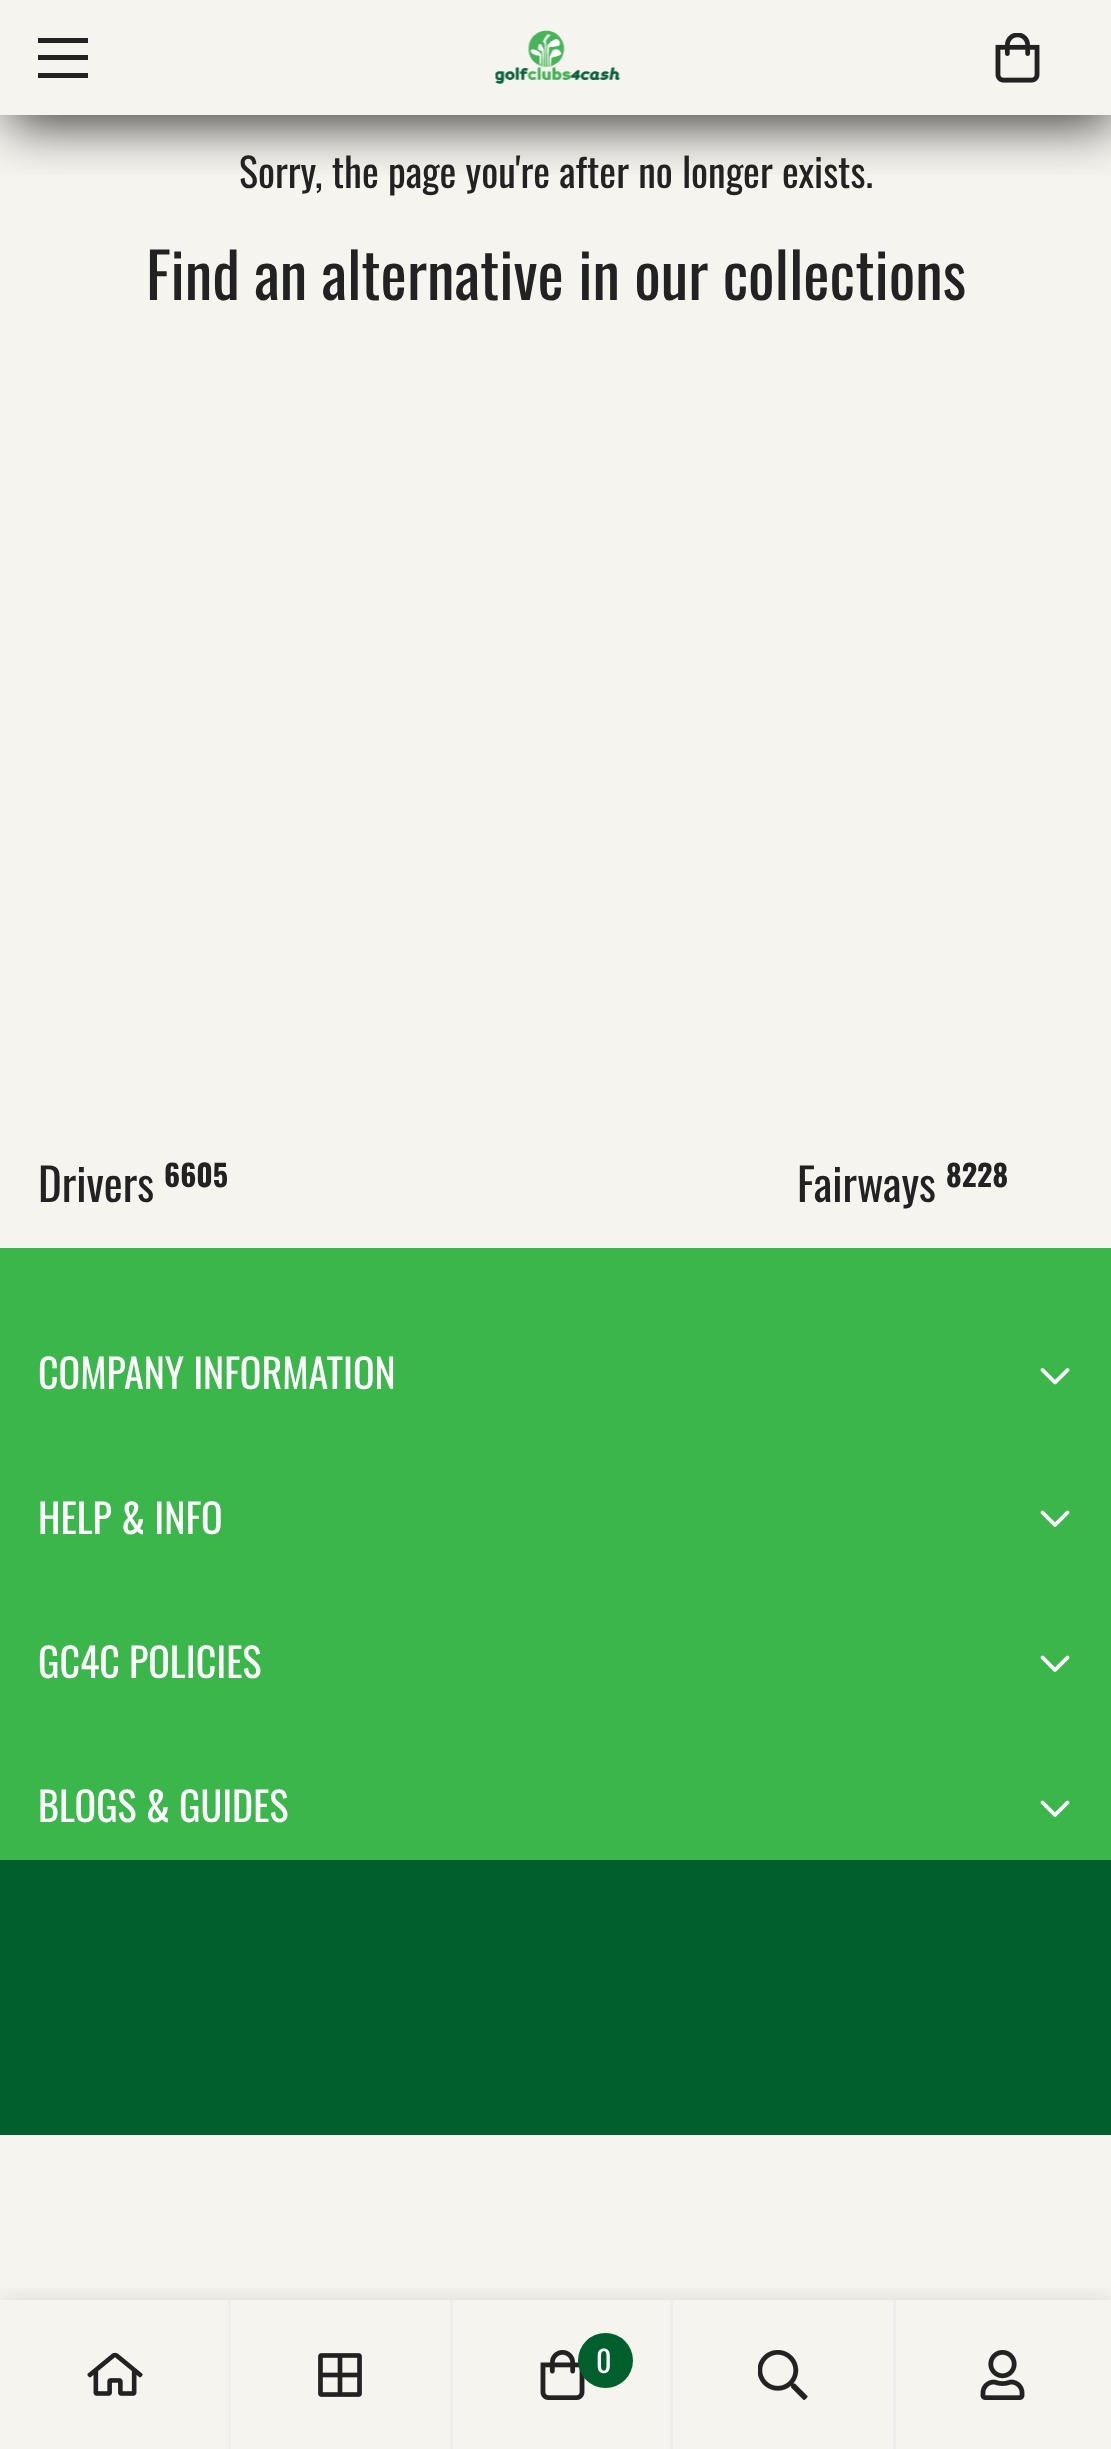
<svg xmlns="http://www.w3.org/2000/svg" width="1111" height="2449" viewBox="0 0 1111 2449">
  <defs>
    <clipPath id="clip1"><rect x="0" y="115" width="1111" height="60"/></clipPath>
    <clipPath id="clip2"><rect x="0" y="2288" width="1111" height="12"/></clipPath>
  </defs>
  <rect width="100%" height="100%" fill="rgb(246,244,239)"/>
  <g clip-path="url(#clip1)">
    <rect x="10" y="20" width="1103" height="105" fill="rgba(0,0,0,0.75)" filter="blur(26px)"/>
  </g>
  <rect x="38" y="55" width="50" height="5" fill="rgb(34,34,34)"/>
  <rect x="38" y="38" width="50" height="5" fill="rgb(34,34,34)"/>
  <rect x="38" y="73" width="50" height="5" fill="rgb(34,34,34)"/>
  <image x="495" y="30" width="126" height="54" href="pic1.png"/>
  <image x="995" y="33" width="45" height="50" href="pic2.png"/>
  <text x="239" y="188" font-family="Oswald" font-size="40" fill="rgb(34,34,34)">Sorry, the page you're after no longer exists.</text>
  <text x="146" y="300" font-family="Oswald" font-size="62.5" fill="rgb(34,34,34)">Find an alternative in our collections</text>
  <text x="38" y="1202" font-family="Oswald" font-size="45" fill="rgb(34,34,34)">Drivers</text>
  <text x="164" y="1187" font-family="Oswald" font-size="30" font-weight="bold" fill="rgb(34,34,34)">6605</text>
  <text x="797" y="1202" font-family="Oswald" font-size="45" fill="rgb(34,34,34)">Fairways</text>
  <text x="946" y="1187" font-family="Oswald" font-size="30" font-weight="bold" fill="rgb(34,34,34)">8228</text>
  <rect x="0" y="1248" width="1111" height="612" fill="rgb(58,182,75)"/>
  <text x="38" y="1389" font-family="Oswald" font-size="40" fill="rgb(255,255,255)">COMPANY INFORMATION</text>
  <image x="1040" y="1368" width="30" height="17" href="pic3.png"/>
  <text x="38" y="1534" font-family="Oswald" font-size="40" fill="rgb(255,255,255)">HELP &amp; INFO</text>
  <image x="1040" y="1510" width="30" height="17" href="pic4.png"/>
  <text x="38" y="1678" font-family="Oswald" font-size="40" fill="rgb(255,255,255)">GC4C POLICIES</text>
  <image x="1040" y="1655" width="30" height="17" href="pic4.png"/>
  <text x="38" y="1822" font-family="Oswald" font-size="40" fill="rgb(255,255,255)">BLOGS &amp; GUIDES</text>
  <image x="1040" y="1800" width="30" height="17" href="pic4.png"/>
  <rect x="0" y="1860" width="1111" height="275" fill="rgb(0,95,44)"/>
  <g clip-path="url(#clip2)">
    <rect x="0" y="2300" width="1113" height="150" fill="rgba(34,34,34,0.12)" filter="blur(12.5px)"/>
  </g>
  <rect x="228" y="2300" width="3" height="149" fill="rgb(238,238,238)"/>
  <image x="87" y="2352" width="56" height="44" href="pic5.png"/>
  <rect x="450" y="2300" width="3" height="149" fill="rgb(238,238,238)"/>
  <image x="318" y="2353" width="44" height="44" href="pic6.png"/>
  <rect x="670" y="2300" width="3" height="149" fill="rgb(238,238,238)"/>
  <image x="540" y="2350" width="45" height="50" href="pic7.png"/>
  <circle cx="605.5" cy="2360.5" r="27.5" fill="rgb(0,95,44)"/>
  <text x="596" y="2373" font-family="Oswald" font-size="30" fill="rgb(255,255,255)">0</text>
  <rect x="893" y="2300" width="3" height="149" fill="rgb(238,238,238)"/>
  <image x="758" y="2350" width="50" height="50" href="pic8.png"/>
  <image x="980" y="2350" width="45" height="50" href="pic9.png"/>
</svg>
